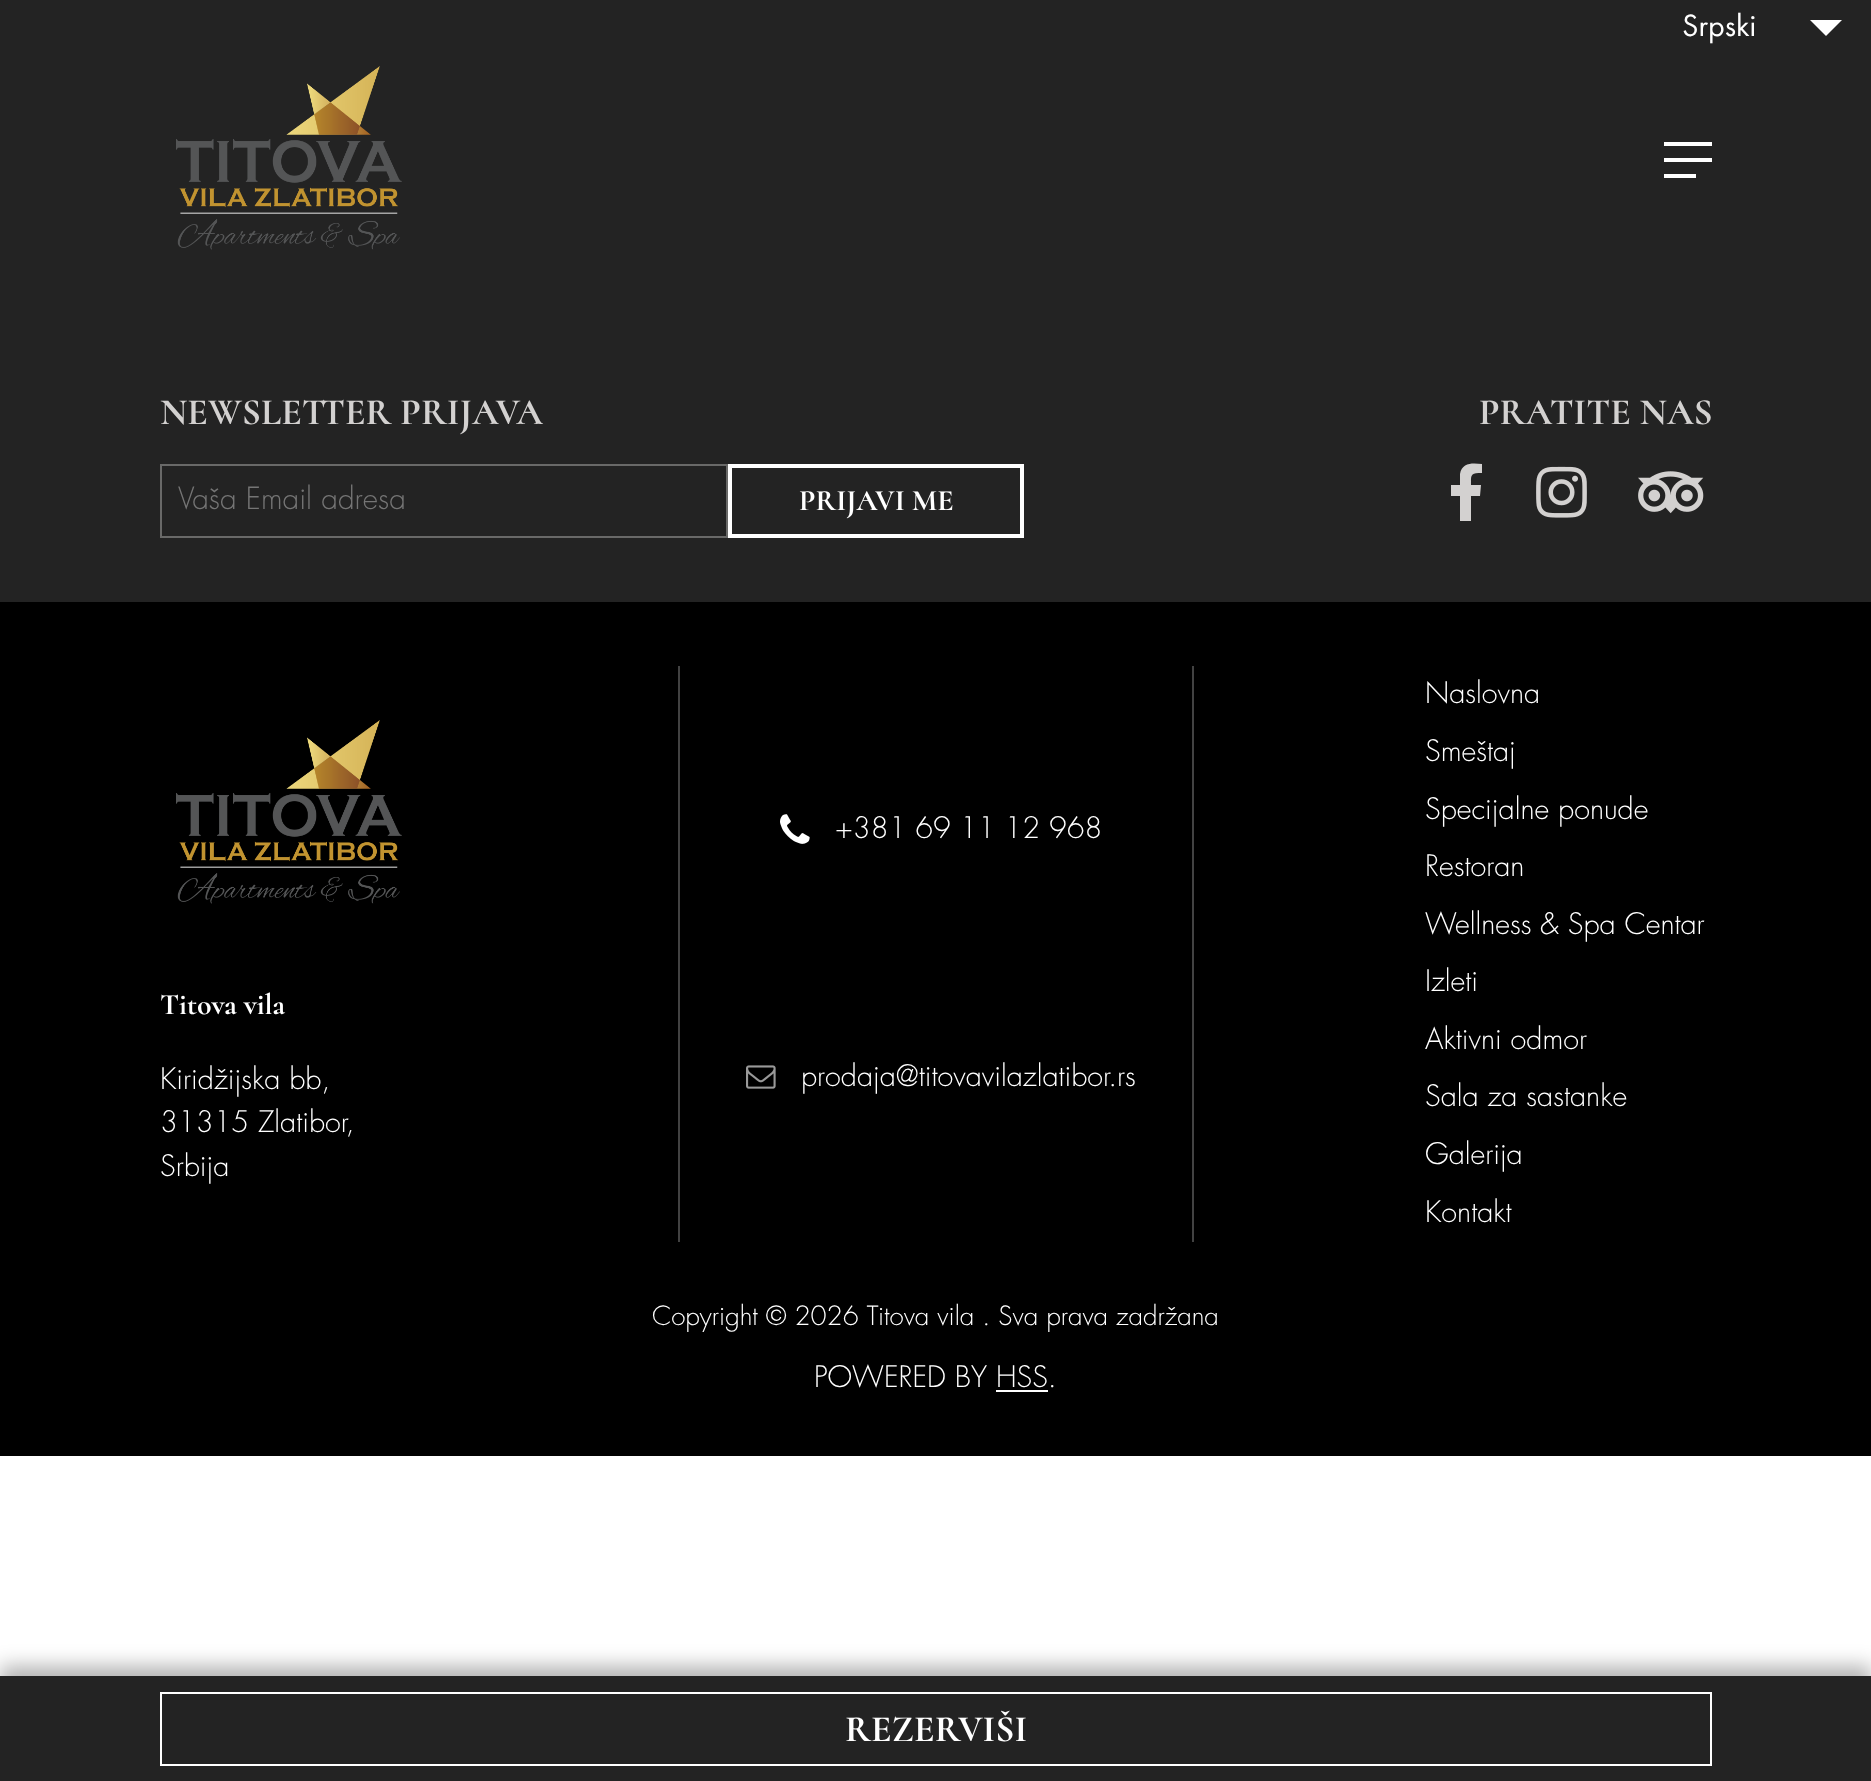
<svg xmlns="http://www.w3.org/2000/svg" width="1871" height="1781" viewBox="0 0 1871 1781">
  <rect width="100%" height="100%" fill="rgb(255,255,255)"/>
  <rect x="0" y="0" width="1871" height="602" fill="rgb(35,35,35)"/>
  <text x="1682" y="36" font-family="Futura PT" font-size="32" fill="rgb(255,255,255)">Srpski</text>
  <path d="M1810 20H1842L1826 36Z" fill="rgb(255,255,255)"/>
  <text x="160" y="424" font-family="Cormorant" font-size="37.25" font-weight="bold" fill="rgb(211,209,208)">NEWSLETTER PRIJAVA</text>
  <rect x="161" y="465" width="566" height="72" fill="none" stroke="rgb(105,105,104)" stroke-width="2"/>
  <text x="178" y="509" font-family="Futura" font-size="29.75" font-weight="300" fill="rgb(117,117,117)">Vaša Email adresa</text>
  <rect x="730" y="466" width="292" height="70" fill="none" stroke="rgb(255,255,255)" stroke-width="4"/>
  <text x="799" y="510" font-family="Cormorant" font-size="29.75" font-weight="bold" fill="rgb(255,255,255)">PRIJAVI ME</text>
  <text x="1479" y="424" font-family="Cormorant" font-size="37.25" font-weight="bold" fill="rgb(211,209,208)">PRATITE NAS</text>
  <path d="M1480 496H1471V521H1460V496H1451V485H1460V474C1462 462 1473 463 1482 464V473C1470 473 1471 475 1471 485H1481Z" fill="rgb(211,209,208)"/>
  <image x="1536" y="466" width="51" height="52" href="pic1.png"/>
  <image x="1638" y="471" width="66" height="43" href="pic2.png"/>
  <rect x="0" y="602" width="1871" height="854" fill="rgb(0,0,0)"/>
  <image x="176" y="720" width="226" height="184" href="pic3.png"/>
  <text x="160" y="1014" font-family="Cormorant" font-size="29.75" font-weight="bold" fill="rgb(255,255,255)">Titova vila</text>
  <g font-family="Futura" font-size="28.75" font-weight="300" fill="rgb(255,255,255)">
    <text>
      <tspan x="160" y="1089">Kiridžijska bb,</tspan>
      <tspan x="160" y="1132">31315 Zlatibor,</tspan>
      <tspan x="160" y="1176">Srbija</tspan>
    </text>
  </g>
  <rect x="1192" y="666" width="2" height="576" fill="rgb(66,66,66)"/>
  <rect x="678" y="666" width="2" height="576" fill="rgb(66,66,66)"/>
  <image x="780" y="814" width="30" height="30" href="pic4.png"/>
  <text x="835" y="838" font-family="Futura" font-size="28.75" font-weight="300" fill="rgb(255,255,255)">+381 69 11 12 968</text>
  <image x="746" y="1065" width="30" height="24" href="pic5.png"/>
  <g font-family="Futura" font-size="28.75" font-weight="300" fill="rgb(255,255,255)">
    <text x="801" y="1086">prodaja@titovavilazlatibor.rs</text>
    <text x="1425" y="703">Naslovna</text>
    <text x="1425" y="761">Smeštaj</text>
    <text>
      <tspan x="1425" y="819">Specijalne ponude</tspan>
      <tspan x="1425" y="876">Restoran</tspan>
    </text>
    <text>
      <tspan x="1425" y="934">Wellness &amp; Spa Centar</tspan>
      <tspan x="1425" y="991">Izleti</tspan>
    </text>
    <text>
      <tspan x="1425" y="1049">Aktivni odmor</tspan>
      <tspan x="1425" y="1106">Sala za sastanke</tspan>
    </text>
    <text x="1425" y="1164">Galerija</text>
    <text x="1425" y="1222">Kontakt</text>
  </g>
  <text x="652" y="1325" font-family="Futura" font-size="25.9" font-weight="300" fill="rgb(255,255,255)">Copyright © 2026 Titova vila . Sva prava zadržana</text>
  <text x="814" y="1387" font-family="Futura" font-size="28.75" font-weight="300" fill="rgb(255,255,255)">POWERED BY HSS.</text>
  <rect x="996" y="1390" width="52" height="2" fill="rgb(255,255,255)"/>
  <image x="176" y="66" width="226" height="184" href="pic6.png"/>
  <rect x="1664" y="142" width="48" height="4" fill="rgb(255,255,255)"/>
  <rect x="1664" y="158" width="48" height="4" fill="rgb(255,255,255)"/>
  <rect x="1664" y="174" width="32" height="4" fill="rgb(255,255,255)"/>
  <rect x="0" y="1666" width="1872" height="106" fill="rgba(0,0,0,0.3)" filter="blur(10px)"/>
  <rect x="0" y="1676" width="1871" height="105" fill="rgb(35,35,35)"/>
  <rect x="161" y="1693" width="1550" height="72" fill="none" stroke="rgb(255,255,255)" stroke-width="2"/>
  <text x="845" y="1741" font-family="Cormorant" font-size="37.25" font-weight="bold" fill="rgb(255,255,255)">REZERVIŠI</text>
</svg>
